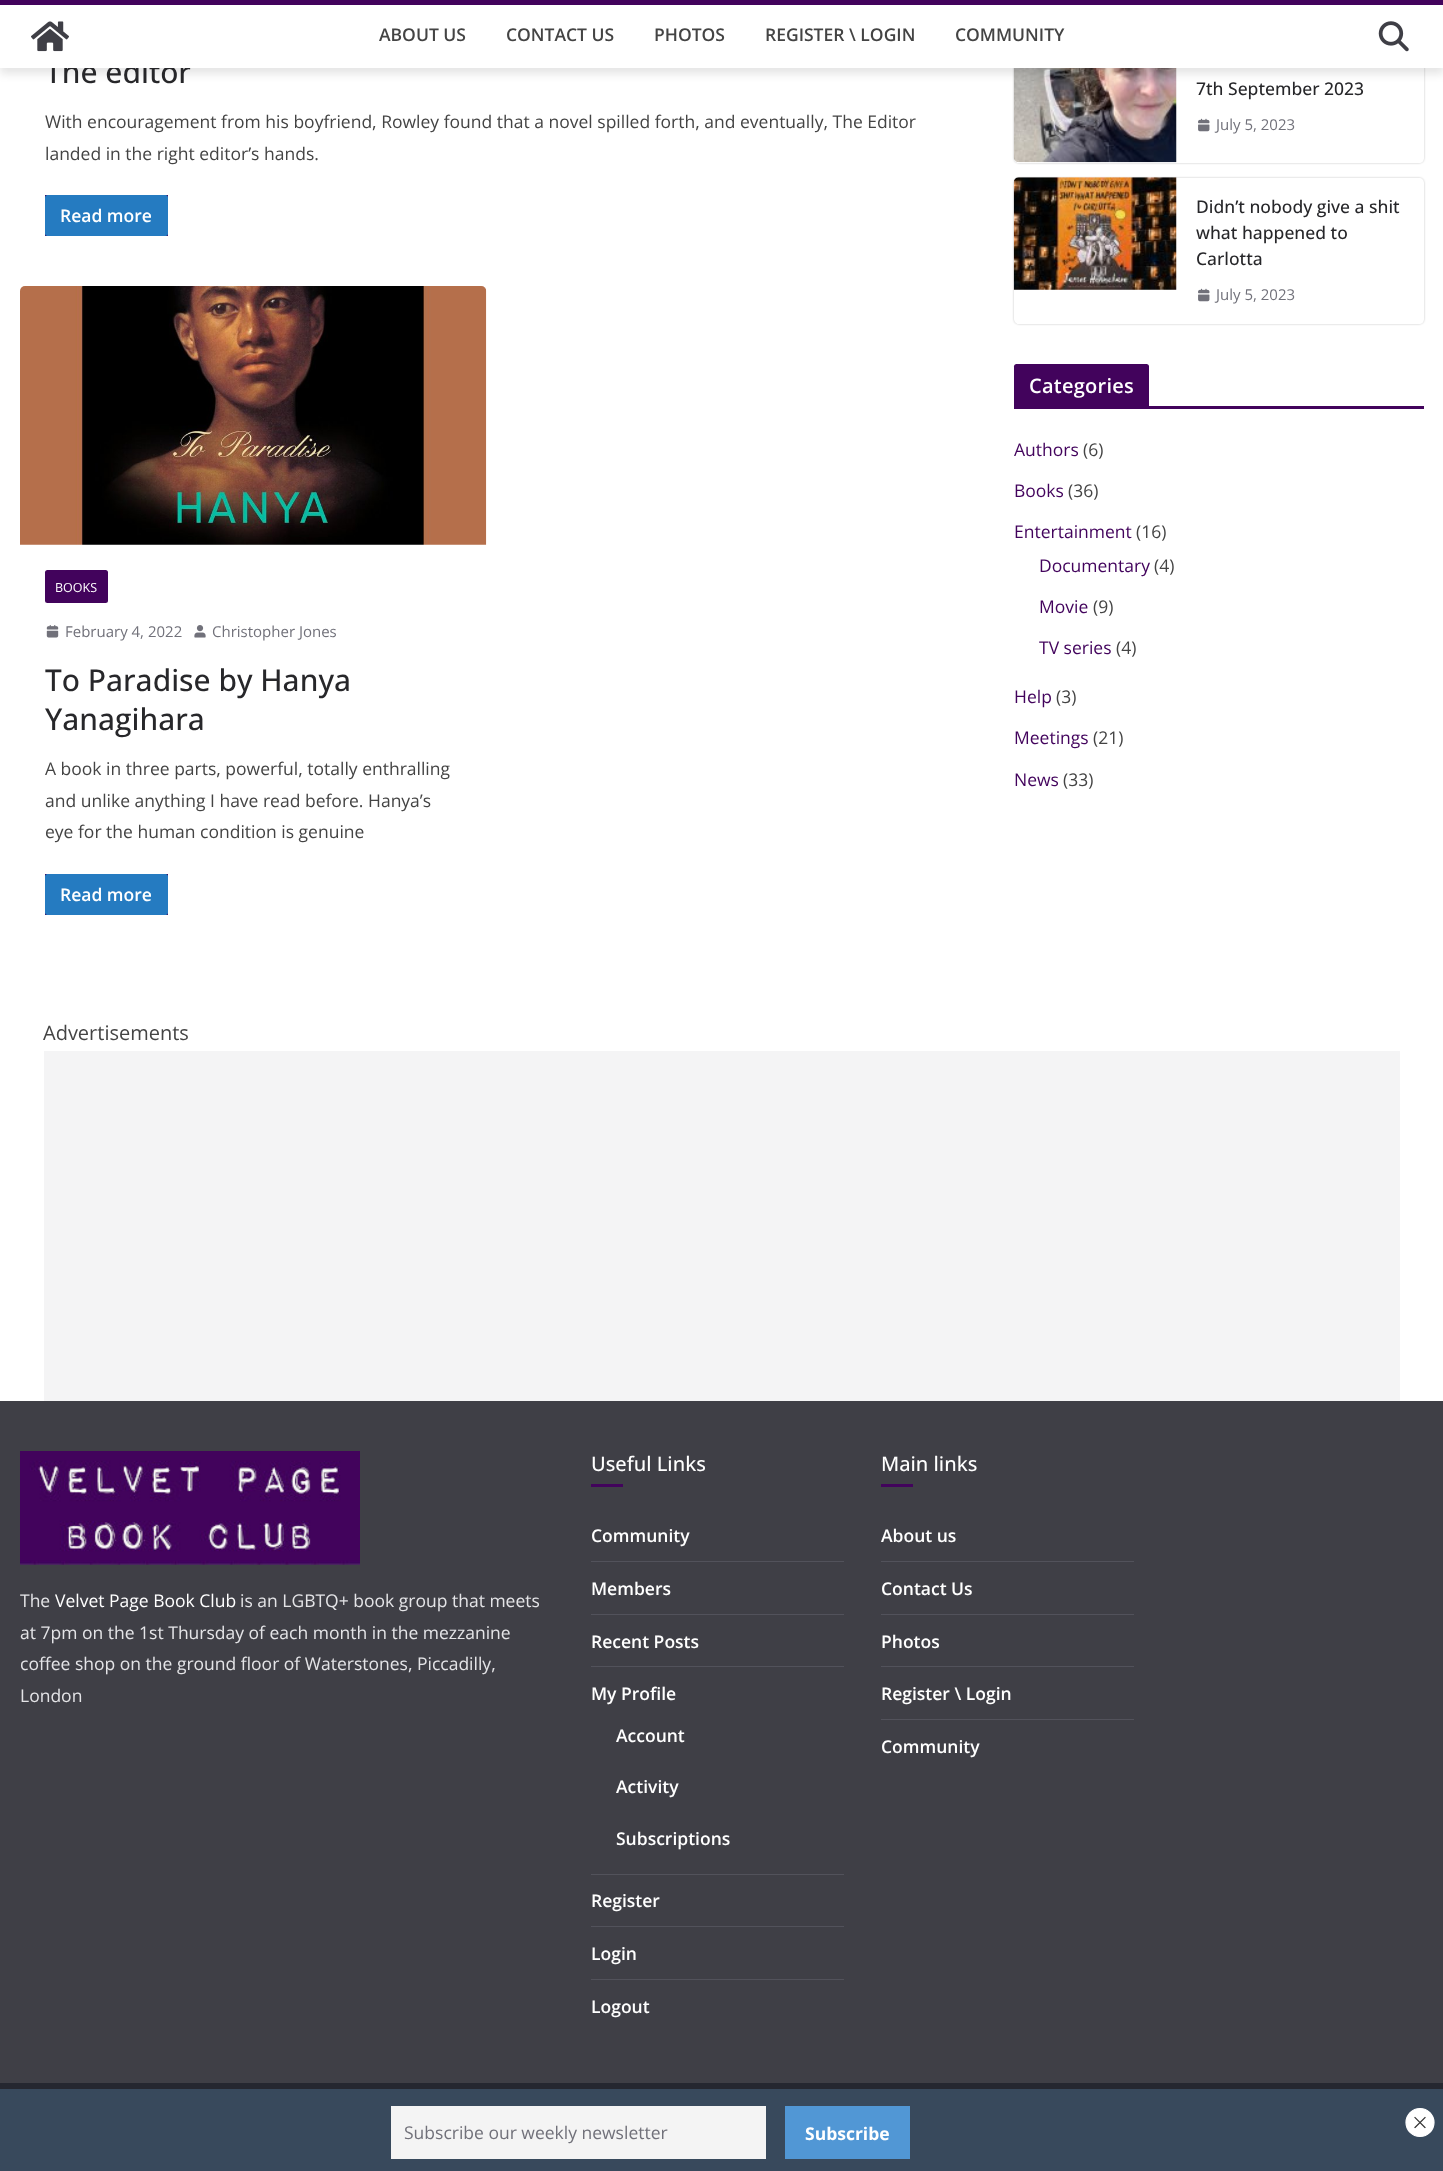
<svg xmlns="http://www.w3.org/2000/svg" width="1443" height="2171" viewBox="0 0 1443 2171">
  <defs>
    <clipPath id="clip1"><path d="M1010 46H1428V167H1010ZM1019 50H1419C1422 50 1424 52 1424 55V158C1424 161 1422 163 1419 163H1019C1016 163 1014 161 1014 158V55C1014 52 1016 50 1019 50Z" clip-rule="evenodd"/></clipPath>
    <clipPath id="clip2"><path d="M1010 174H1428V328H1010ZM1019 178H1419C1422 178 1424 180 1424 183V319C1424 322 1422 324 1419 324H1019C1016 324 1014 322 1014 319V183C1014 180 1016 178 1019 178Z" clip-rule="evenodd"/></clipPath>
  </defs>
  <rect width="100%" height="100%" fill="rgb(255,255,255)"/>
  <g clip-path="url(#clip1)">
    <rect x="1014" y="50" width="410" height="113" rx="5" fill="rgba(0,0,0,0.24)" filter="blur(1px)"/>
  </g>
  <image x="1013" y="68" width="164" height="95" href="pic6.png"/>
  <rect x="0" y="6" width="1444" height="68" fill="rgba(0,0,0,0.1)" filter="blur(4px)"/>
  <text x="45" y="83" font-family="Open Sans" font-size="30" font-weight="500" fill="rgb(39,39,42)">The editor</text>
  <rect x="0" y="5" width="1443" height="63" fill="rgb(255,255,255)"/>
  <rect x="0" y="0" width="1443" height="5" fill="rgb(66,3,92)"/>
  <image x="31" y="21" width="38" height="31" href="pic1.png"/>
  <g font-family="Open Sans" font-size="17.5" font-weight="600" fill="rgb(68,68,68)">
    <text x="379" y="41">ABOUT US</text>
    <text x="506" y="41">CONTACT US</text>
    <text x="654" y="41">PHOTOS</text>
    <text x="765" y="41">REGISTER \ LOGIN</text>
    <text x="955" y="41">COMMUNITY</text>
  </g>
  <image x="1378" y="21" width="31" height="31" href="pic2.png"/>
  <g font-family="Open Sans" font-size="17.5" fill="rgb(68,68,68)">
    <text>
      <tspan x="45" y="128">With encouragement from his boyfriend, Rowley found that a novel spilled forth, and eventually, The Editor</tspan>
      <tspan x="45" y="160">landed in the right editor’s hands.</tspan>
    </text>
  </g>
  <rect x="45" y="195" width="123" height="41" fill="rgb(66,3,92)"/>
  <rect x="45" y="195" width="123" height="41" rx="2.5" fill="rgb(37,123,193)"/>
  <text x="60" y="222" font-family="Open Sans" font-size="17.5" font-weight="600" fill="rgb(255,255,255)">Read more</text>
  <image x="20" y="286" width="467" height="259" href="pic3.png"/>
  <rect x="45" y="570" width="63" height="33" rx="2.5" fill="rgb(66,3,92)"/>
  <text x="55" y="592" font-family="Open Sans" font-size="12.5" fill="rgb(255,255,255)">BOOKS</text>
  <image x="46" y="625" width="13" height="13" href="pic4.png"/>
  <text x="65" y="637" font-family="Open Sans" font-size="15" fill="rgb(113,113,122)">February 4, 2022</text>
  <image x="194" y="625" width="12" height="13" href="pic5.png"/>
  <text x="212" y="637" font-family="Open Sans" font-size="15" fill="rgb(113,113,122)">Christopher Jones</text>
  <g font-family="Open Sans" font-size="30" font-weight="500" fill="rgb(39,39,42)">
    <text>
      <tspan x="45" y="691">To Paradise by Hanya</tspan>
      <tspan x="45" y="730">Yanagihara</tspan>
    </text>
  </g>
  <g font-family="Open Sans" font-size="17.5" fill="rgb(68,68,68)">
    <text>
      <tspan x="45" y="775">A book in three parts, powerful, totally enthralling</tspan>
      <tspan x="45" y="807">and unlike anything I have read before. Hanya’s</tspan>
      <tspan x="45" y="838">eye for the human condition is genuine</tspan>
    </text>
  </g>
  <rect x="45" y="874" width="123" height="41" fill="rgb(66,3,92)"/>
  <rect x="45" y="874" width="123" height="41" rx="2.5" fill="rgb(37,123,193)"/>
  <text x="60" y="901" font-family="Open Sans" font-size="17.5" font-weight="600" fill="rgb(255,255,255)">Read more</text>
  <text x="1196" y="95" font-family="Open Sans" font-size="17.5" font-weight="500" fill="rgb(39,39,42)">7th September 2023</text>
  <image x="1198" y="118" width="12" height="14" href="pic7.png"/>
  <text x="1216" y="130" font-family="Open Sans" font-size="15" fill="rgb(113,113,122)">July 5, 2023</text>
  <g clip-path="url(#clip2)">
    <rect x="1014" y="178" width="410" height="146" rx="5" fill="rgba(0,0,0,0.24)" filter="blur(1px)"/>
  </g>
  <image x="1013" y="177" width="164" height="113" href="pic8.png"/>
  <g font-family="Open Sans" font-size="17.5" font-weight="500" fill="rgb(39,39,42)">
    <text>
      <tspan x="1196" y="213">Didn’t nobody give a shit</tspan>
      <tspan x="1196" y="239">what happened to</tspan>
      <tspan x="1196" y="265">Carlotta</tspan>
    </text>
  </g>
  <image x="1198" y="288" width="12" height="14" href="pic7.png"/>
  <text x="1216" y="300" font-family="Open Sans" font-size="15" fill="rgb(113,113,122)">July 5, 2023</text>
  <rect x="1014" y="406" width="410" height="3" fill="rgb(66,3,92)"/>
  <path d="M1016.5 364H1146.5C1148 364 1149 365 1149 366.5V406H1014V366.5C1014 365 1015 364 1016.5 364Z" fill="rgb(66,3,92)"/>
  <text x="1029" y="393" font-family="Open Sans" font-size="20" font-weight="600" letter-spacing="0.25" fill="rgb(255,255,255)">Categories</text>
  <text x="1014" y="456" font-family="Open Sans" font-size="17.5" fill="rgb(66,3,92)">Authors</text>
  <text x="1083" y="456" font-family="Open Sans" font-size="17.5" fill="rgb(68,68,68)">(6)</text>
  <text x="1014" y="497" font-family="Open Sans" font-size="17.5" fill="rgb(66,3,92)">Books</text>
  <text x="1068" y="497" font-family="Open Sans" font-size="17.5" fill="rgb(68,68,68)">(36)</text>
  <text x="1014" y="538" font-family="Open Sans" font-size="17.5" fill="rgb(66,3,92)">Entertainment</text>
  <text x="1136" y="538" font-family="Open Sans" font-size="17.5" fill="rgb(68,68,68)">(16)</text>
  <text x="1039" y="572" font-family="Open Sans" font-size="17.5" fill="rgb(66,3,92)">Documentary</text>
  <text x="1154" y="572" font-family="Open Sans" font-size="17.5" fill="rgb(68,68,68)">(4)</text>
  <text x="1039" y="613" font-family="Open Sans" font-size="17.5" fill="rgb(66,3,92)">Movie</text>
  <text x="1093" y="613" font-family="Open Sans" font-size="17.5" fill="rgb(68,68,68)">(9)</text>
  <text x="1039" y="654" font-family="Open Sans" font-size="17.5" fill="rgb(66,3,92)">TV series</text>
  <text x="1116" y="654" font-family="Open Sans" font-size="17.5" fill="rgb(68,68,68)">(4)</text>
  <text x="1014" y="703" font-family="Open Sans" font-size="17.5" fill="rgb(66,3,92)">Help</text>
  <text x="1056" y="703" font-family="Open Sans" font-size="17.5" fill="rgb(68,68,68)">(3)</text>
  <text x="1014" y="744" font-family="Open Sans" font-size="17.5" fill="rgb(66,3,92)">Meetings</text>
  <text x="1093" y="744" font-family="Open Sans" font-size="17.5" fill="rgb(68,68,68)">(21)</text>
  <text x="1014" y="786" font-family="Open Sans" font-size="17.5" fill="rgb(66,3,92)">News</text>
  <text x="1063" y="786" font-family="Open Sans" font-size="17.5" fill="rgb(68,68,68)">(33)</text>
  <text x="43" y="1040" font-family="Open Sans" font-size="20" fill="rgb(68,68,68)">Advertisements</text>
  <rect x="44" y="1051" width="1356" height="350" fill="rgb(244,244,245)"/>
  <rect x="0" y="1401" width="1443" height="682" fill="rgb(63,63,70)"/>
  <image x="20" y="1451" width="340" height="114" href="pic9.png"/>
  <text x="20" y="1607" font-family="Open Sans" font-size="17.5" fill="rgb(228,228,231)">The</text>
  <text x="55" y="1607" font-family="Open Sans" font-size="17.5" fill="rgb(255,255,255)">Velvet Page Book Club</text>
  <g font-family="Open Sans" font-size="17.5" fill="rgb(228,228,231)">
    <text x="240" y="1607">is an LGBTQ+ book group that meets</text>
    <text>
      <tspan x="20" y="1639">at 7pm on the 1st Thursday of each month in the mezzanine</tspan>
      <tspan x="20" y="1670">coffee shop on the ground floor of Waterstones, Piccadilly,</tspan>
      <tspan x="20" y="1702">London</tspan>
    </text>
  </g>
  <text x="591" y="1471" font-family="Open Sans" font-size="20" font-weight="500" fill="rgb(255,255,255)">Useful Links</text>
  <rect x="591" y="1484" width="32" height="3" fill="rgb(66,3,92)"/>
  <rect x="591" y="1561" width="253" height="1" fill="rgb(82,82,91)"/>
  <text x="591" y="1542" font-family="Open Sans" font-size="17.5" font-weight="600" fill="rgb(255,255,255)">Community</text>
  <rect x="591" y="1614" width="253" height="1" fill="rgb(82,82,91)"/>
  <text x="591" y="1595" font-family="Open Sans" font-size="17.5" font-weight="600" fill="rgb(255,255,255)">Members</text>
  <rect x="591" y="1666" width="253" height="1" fill="rgb(82,82,91)"/>
  <text x="591" y="1648" font-family="Open Sans" font-size="17.5" font-weight="600" fill="rgb(255,255,255)">Recent Posts</text>
  <rect x="591" y="1874" width="253" height="1" fill="rgb(82,82,91)"/>
  <g font-family="Open Sans" font-size="17.5" font-weight="600" fill="rgb(255,255,255)">
    <text x="591" y="1700">My Profile</text>
    <text x="616" y="1742">Account</text>
    <text x="616" y="1793">Activity</text>
    <text x="616" y="1845">Subscriptions</text>
  </g>
  <rect x="591" y="1926" width="253" height="1" fill="rgb(82,82,91)"/>
  <text x="591" y="1907" font-family="Open Sans" font-size="17.5" font-weight="600" fill="rgb(255,255,255)">Register</text>
  <rect x="591" y="1979" width="253" height="1" fill="rgb(82,82,91)"/>
  <g font-family="Open Sans" font-size="17.5" font-weight="600" fill="rgb(255,255,255)">
    <text x="591" y="1960">Login</text>
    <text x="591" y="2013">Logout</text>
  </g>
  <text x="881" y="1471" font-family="Open Sans" font-size="20" font-weight="500" fill="rgb(255,255,255)">Main links</text>
  <rect x="881" y="1484" width="32" height="3" fill="rgb(66,3,92)"/>
  <rect x="881" y="1561" width="253" height="1" fill="rgb(82,82,91)"/>
  <text x="881" y="1542" font-family="Open Sans" font-size="17.5" font-weight="600" fill="rgb(255,255,255)">About us</text>
  <rect x="881" y="1614" width="253" height="1" fill="rgb(82,82,91)"/>
  <text x="881" y="1595" font-family="Open Sans" font-size="17.5" font-weight="600" fill="rgb(255,255,255)">Contact Us</text>
  <rect x="881" y="1666" width="253" height="1" fill="rgb(82,82,91)"/>
  <text x="881" y="1648" font-family="Open Sans" font-size="17.5" font-weight="600" fill="rgb(255,255,255)">Photos</text>
  <rect x="881" y="1719" width="253" height="1" fill="rgb(82,82,91)"/>
  <g font-family="Open Sans" font-size="17.5" font-weight="600" fill="rgb(255,255,255)">
    <text x="881" y="1700">Register \ Login</text>
    <text x="881" y="1753">Community</text>
  </g>
  <rect x="0" y="2083" width="1443" height="6" fill="rgb(37,39,48)"/>
  <rect x="0" y="2089" width="1443" height="82" fill="rgb(56,73,92)"/>
  <rect x="391" y="2106" width="375" height="53" fill="rgb(244,244,244)"/>
  <text x="404" y="2139" font-family="Open Sans" font-size="17.5" fill="rgb(113,113,122)">Subscribe our weekly newsletter</text>
  <rect x="785" y="2106" width="125" height="53" fill="rgb(81,151,213)"/>
  <text x="805" y="2140" font-family="Open Sans" font-size="17.5" font-weight="bold" fill="rgb(255,255,255)">Subscribe</text>
  <circle cx="1420" cy="2122.5" r="14" fill="rgb(255,255,255)" stroke="rgb(255,255,255)" stroke-width="1.2"/>
  <path d="M1425 2117.5L1415 2127.5M1425 2127.5L1415 2117.5" fill="none" stroke="rgb(52,52,52)" stroke-width="1.2" stroke-linecap="square"/>
</svg>
